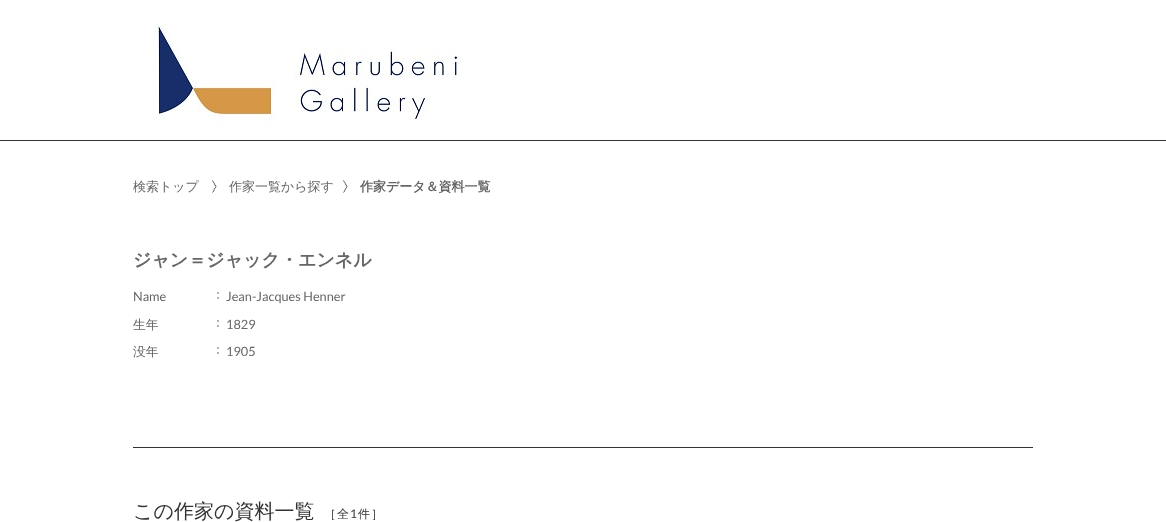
<svg xmlns="http://www.w3.org/2000/svg" width="1166" height="522" viewBox="0 0 1166 522">
  <rect width="100%" height="100%" fill="rgb(255,255,255)"/>
  <image x="149" y="16" width="320" height="110" href="pic1.png"/>
  <rect x="0" y="140" width="1166" height="1" fill="rgb(51,51,51)"/>
  <text x="133" y="191" font-family="WenQuanYi Zen Hei" font-size="13" font-weight="500" fill="rgb(102,102,102)">検索トップ</text>
  <image x="212" y="180" width="5" height="13" href="pic2.png"/>
  <text x="229" y="191" font-family="WenQuanYi Zen Hei" font-size="13" font-weight="500" fill="rgb(102,102,102)">作家一覧から探す</text>
  <image x="343" y="180" width="5" height="13" href="pic2.png"/>
  <text x="360" y="191" font-family="WenQuanYi Zen Hei" font-size="13" font-weight="bold" fill="rgb(102,102,102)">作家データ＆資料一覧</text>
  <text x="133" y="266" font-family="WenQuanYi Zen Hei" font-size="18" font-weight="bold" fill="rgb(102,102,102)">ジャン＝ジャック・エンネル</text>
  <text x="133" y="301" font-family="Lato" font-size="12.75" fill="rgb(102,102,102)">Name</text>
  <image x="217" y="292" width="2" height="7" href="pic3.png"/>
  <text x="226" y="301" font-family="Lato" font-size="12.75" fill="rgb(102,102,102)">Jean-Jacques Henner</text>
  <text x="133" y="329" font-family="WenQuanYi Zen Hei" font-size="12.75" font-weight="500" fill="rgb(102,102,102)">生年</text>
  <image x="217" y="320" width="2" height="7" href="pic3.png"/>
  <text x="226" y="329" font-family="Lato" font-size="12.75" fill="rgb(102,102,102)">1829</text>
  <text x="133" y="356" font-family="WenQuanYi Zen Hei" font-size="12.75" font-weight="500" fill="rgb(102,102,102)">没年</text>
  <image x="217" y="347" width="2" height="7" href="pic3.png"/>
  <text x="226" y="356" font-family="Lato" font-size="12.75" fill="rgb(102,102,102)">1905</text>
  <rect x="133" y="447" width="900" height="1" fill="rgb(51,51,51)"/>
  <text x="133" y="518" font-family="WenQuanYi Zen Hei" font-size="20" font-weight="500" fill="rgb(51,51,51)">この作家の資料一覧</text>
  <text x="324" y="518" font-family="WenQuanYi Zen Hei" font-size="12" font-weight="500" letter-spacing="1" fill="rgb(51,51,51)">［全</text>
  <text x="350" y="518" font-family="Lato" font-size="12" letter-spacing="1" fill="rgb(51,51,51)">1</text>
  <text x="358" y="518" font-family="WenQuanYi Zen Hei" font-size="12" font-weight="500" letter-spacing="1" fill="rgb(51,51,51)">件］</text>
</svg>
